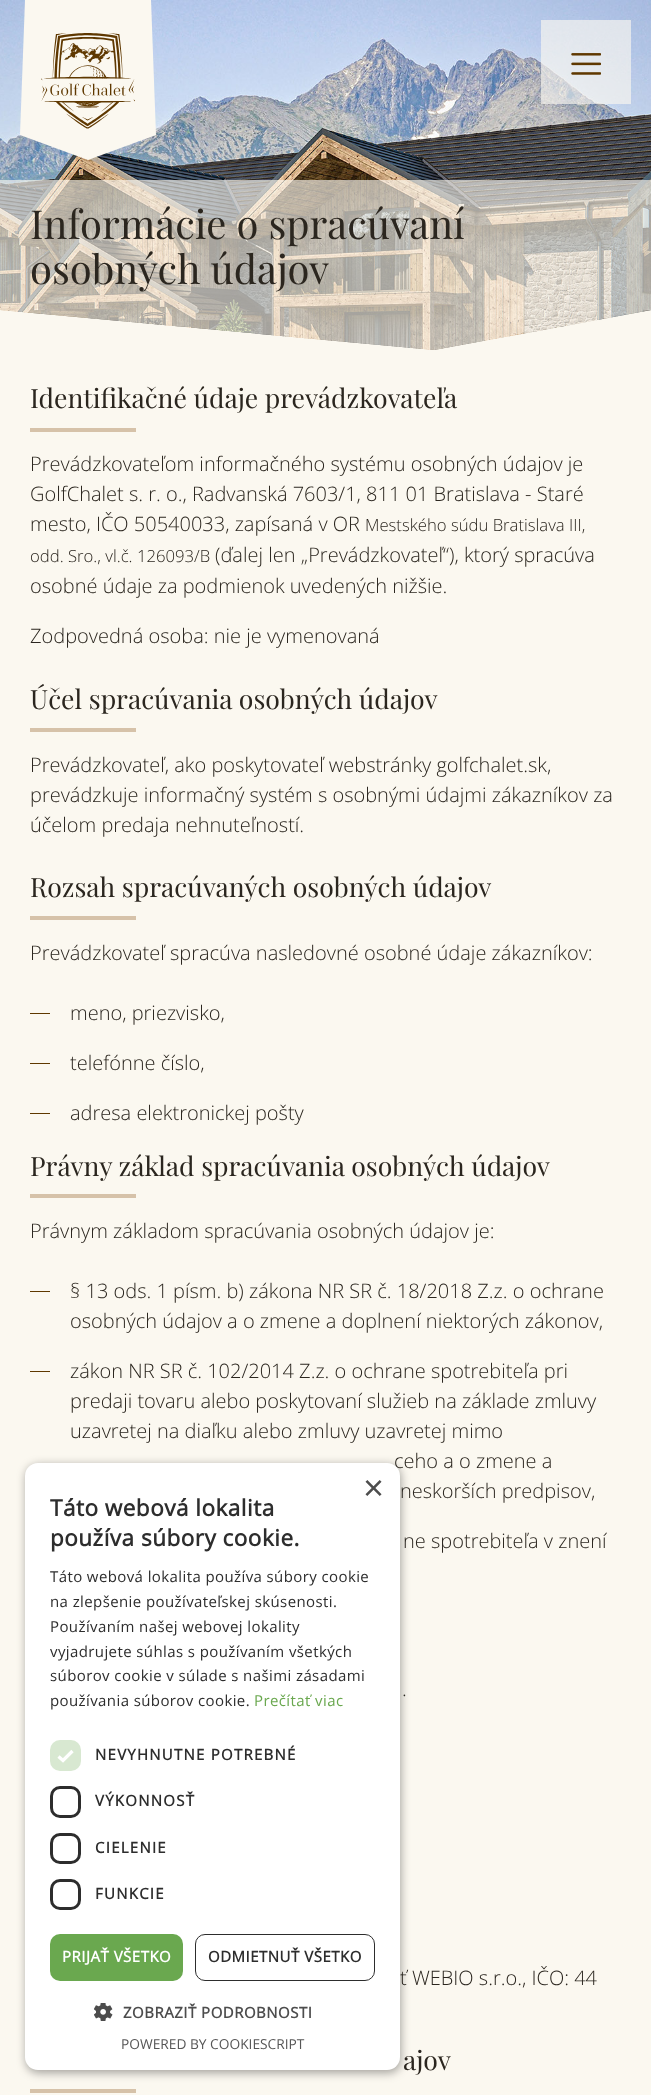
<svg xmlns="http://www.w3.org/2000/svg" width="651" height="2095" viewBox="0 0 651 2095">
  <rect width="100%" height="100%" fill="rgb(251,248,240)"/>
  <image x="0" y="0" width="651" height="350" href="pic3.png"/>
  <path d="M25 0L20 135L88 160L156 135L151 0Z" fill="rgb(251,248,240)"/>
  <image x="41" y="33" width="94" height="96" href="pic1.png"/>
  <rect x="541" y="20" width="90" height="84" fill="rgba(251,248,240,0.65)"/>
  <image x="571" y="53" width="30" height="22" href="pic2.png"/>
  <path d="M0 180V310L434 350L651 310V180Z" fill="rgba(251,248,240,0.65)"/>
  <g font-family="Playfair Display" font-size="40" fill="rgb(43,38,31)">
    <text>
      <tspan x="30" y="239">Informácie o spracúvaní</tspan>
      <tspan x="30" y="284">osobných údajov</tspan>
    </text>
  </g>
  <text x="30" y="408" font-family="Playfair Display" font-size="26.6" fill="rgb(43,38,31)">Identifikačné údaje prevádzkovateľa</text>
  <rect x="30" y="428" width="106" height="4" fill="rgb(214,194,169)"/>
  <g font-family="Open Sans" font-size="20" font-weight="300" fill="rgb(43,38,31)">
    <text>
      <tspan x="30" y="471">Prevádzkovateľom informačného systému osobných údajov je</tspan>
      <tspan x="30" y="501">GolfChalet s. r. o., Radvanská 7603/1, 811 01 Bratislava - Staré</tspan>
      <tspan x="30" y="531">mesto, IČO 50540033, zapísaná v OR</tspan>
    </text>
  </g>
  <g font-family="Open Sans" font-size="16.7" font-weight="300" fill="rgb(43,38,31)">
    <text x="365" y="531">Mestského súdu Bratislava III,</text>
    <text x="30" y="562">odd. Sro., vl.č. 126093/B</text>
  </g>
  <g font-family="Open Sans" font-size="20" font-weight="300" fill="rgb(43,38,31)">
    <text x="215" y="562">(ďalej len „Prevádzkovateľ“), ktorý spracúva</text>
    <text x="30" y="593">osobné údaje za podmienok uvedených nižšie.</text>
    <text x="30" y="643">Zodpovedná osoba: nie je vymenovaná</text>
  </g>
  <text x="30" y="709" font-family="Playfair Display" font-size="26.6" fill="rgb(43,38,31)">Účel spracúvania osobných údajov</text>
  <rect x="30" y="728" width="106" height="4" fill="rgb(214,194,169)"/>
  <g font-family="Open Sans" font-size="20" font-weight="300" fill="rgb(43,38,31)">
    <text>
      <tspan x="30" y="772">Prevádzkovateľ, ako poskytovateľ webstránky golfchalet.sk,</tspan>
      <tspan x="30" y="802">prevádzkuje informačný systém s osobnými údajmi zákazníkov za</tspan>
      <tspan x="30" y="832">účelom predaja nehnuteľností.</tspan>
    </text>
  </g>
  <text x="30" y="897" font-family="Playfair Display" font-size="26.6" fill="rgb(43,38,31)">Rozsah spracúvaných osobných údajov</text>
  <rect x="30" y="916" width="106" height="4" fill="rgb(214,194,169)"/>
  <text x="30" y="960" font-family="Open Sans" font-size="20" font-weight="300" fill="rgb(43,38,31)">Prevádzkovateľ spracúva nasledovné osobné údaje zákazníkov:</text>
  <rect x="30" y="1013" width="20" height="1" fill="rgb(95,56,0)"/>
  <text x="70" y="1020" font-family="Open Sans" font-size="20" font-weight="300" fill="rgb(43,38,31)">meno, priezvisko,</text>
  <rect x="30" y="1063" width="20" height="1" fill="rgb(95,56,0)"/>
  <text x="70" y="1070" font-family="Open Sans" font-size="20" font-weight="300" fill="rgb(43,38,31)">telefónne číslo,</text>
  <rect x="30" y="1113" width="20" height="1" fill="rgb(95,56,0)"/>
  <text x="70" y="1120" font-family="Open Sans" font-size="20" font-weight="300" fill="rgb(43,38,31)">adresa elektronickej pošty</text>
  <text x="30" y="1176" font-family="Playfair Display" font-size="26.6" fill="rgb(43,38,31)">Právny základ spracúvania osobných údajov</text>
  <rect x="30" y="1194" width="106" height="4" fill="rgb(214,194,169)"/>
  <text x="30" y="1238" font-family="Open Sans" font-size="20" font-weight="300" fill="rgb(43,38,31)">Právnym základom spracúvania osobných údajov je:</text>
  <rect x="30" y="1291" width="20" height="1" fill="rgb(95,56,0)"/>
  <g font-family="Open Sans" font-size="20" font-weight="300" fill="rgb(43,38,31)">
    <text>
      <tspan x="70" y="1298">§ 13 ods. 1 písm. b) zákona NR SR č. 18/2018 Z.z. o ochrane</tspan>
      <tspan x="70" y="1328">osobných údajov a o zmene a doplnení niektorých zákonov,</tspan>
    </text>
  </g>
  <rect x="30" y="1371" width="20" height="1" fill="rgb(95,56,0)"/>
  <g font-family="Open Sans" font-size="20" font-weight="300" fill="rgb(43,38,31)">
    <text>
      <tspan x="70" y="1378">zákon NR SR č. 102/2014 Z.z. o ochrane spotrebiteľa pri</tspan>
      <tspan x="70" y="1408">predaji tovaru alebo poskytovaní služieb na základe zmluvy</tspan>
      <tspan x="70" y="1438">uzavretej na diaľku alebo zmluvy uzavretej mimo</tspan>
    </text>
    <text x="394" y="1468">ceho a o zmene a</text>
    <text x="400" y="1498">neskorších predpisov,</text>
    <text x="403" y="1548">ne spotrebiteľa v znení</text>
    <text x="402" y="1696">.</text>
    <text x="400" y="1985">ť WEBIO s.r.o., IČO: 44</text>
  </g>
  <text x="403" y="2070" font-family="Playfair Display" font-size="26.6" fill="rgb(43,38,31)">ajov</text>
  <rect x="30" y="2089" width="106" height="4" fill="rgb(214,194,169)"/>
  <rect x="26" y="1465" width="375" height="608" rx="13" fill="rgba(0,0,0,0.35)" filter="blur(5px)"/>
  <rect x="25" y="1463" width="375" height="607" rx="13" fill="rgb(255,255,255)"/>
  <text x="363" y="1500" font-family="Liberation Sans" font-size="36" fill="rgb(77,77,77)">×</text>
  <g font-family="Open Sans" font-size="22.5" font-weight="bold" letter-spacing="0.5" fill="rgb(45,45,45)">
    <text>
      <tspan x="50" y="1516">Táto webová lokalita</tspan>
      <tspan x="50" y="1546">používa súbory cookie.</tspan>
    </text>
  </g>
  <g font-family="Open Sans" font-size="15" letter-spacing="0.4" fill="rgb(45,45,45)">
    <text>
      <tspan x="50" y="1582">Táto webová lokalita používa súbory cookie</tspan>
      <tspan x="50" y="1607">na zlepšenie používateľskej skúsenosti.</tspan>
      <tspan x="50" y="1632">Používaním našej webovej lokality</tspan>
      <tspan x="50" y="1657">vyjadrujete súhlas s používaním všetkých</tspan>
      <tspan x="50" y="1681">súborov cookie v súlade s našimi zásadami</tspan>
      <tspan x="50" y="1706">používania súborov cookie.</tspan>
    </text>
  </g>
  <text x="254" y="1706" font-family="Open Sans" font-size="15" letter-spacing="0.4" fill="rgb(106,168,79)">Prečítať viac</text>
  <rect x="50" y="1740" width="31" height="31" rx="10" fill="rgb(216,232,209)"/>
  <path d="M58.5 1756.5L63 1760.5L72.5 1751" fill="none" stroke="rgb(255,255,255)" stroke-width="3.3"/>
  <text x="95" y="1760" font-family="Open Sans" font-size="15" font-weight="bold" letter-spacing="1.25" fill="rgb(45,45,45)">NEVYHNUTNE POTREBNÉ</text>
  <rect x="51.5" y="1787.5" width="28" height="29" rx="8.5" fill="none" stroke="rgb(45,45,45)" stroke-width="3"/>
  <text x="95" y="1806" font-family="Open Sans" font-size="15" font-weight="bold" letter-spacing="1.25" fill="rgb(45,45,45)">VÝKONNOSŤ</text>
  <rect x="51.5" y="1834.5" width="28" height="28" rx="8.5" fill="none" stroke="rgb(45,45,45)" stroke-width="3"/>
  <text x="95" y="1853" font-family="Open Sans" font-size="15" font-weight="bold" letter-spacing="1.25" fill="rgb(45,45,45)">CIELENIE</text>
  <rect x="51.5" y="1880.5" width="28" height="28" rx="8.5" fill="none" stroke="rgb(45,45,45)" stroke-width="3"/>
  <text x="95" y="1899" font-family="Open Sans" font-size="15" font-weight="bold" letter-spacing="1.25" fill="rgb(45,45,45)">FUNKCIE</text>
  <rect x="50" y="1934" width="133" height="47" rx="10" fill="rgb(106,168,79)"/>
  <text x="62" y="1962" font-family="Open Sans" font-size="15" font-weight="bold" letter-spacing="0.5" fill="rgb(255,255,255)">PRIJAŤ VŠETKO</text>
  <rect x="195.5" y="1934.5" width="179" height="46" rx="9.5" fill="none" stroke="rgb(45,45,45)"/>
  <text x="208" y="1962" font-family="Open Sans" font-size="15" font-weight="bold" letter-spacing="0.5" fill="rgb(45,45,45)">ODMIETNUŤ VŠETKO</text>
  <image x="94" y="2003" width="19" height="18" href="pic4.png"/>
  <text x="123" y="2018" font-family="Open Sans" font-size="15" font-weight="bold" letter-spacing="0.5" fill="rgb(77,77,77)">ZOBRAZIŤ PODROBNOSTI</text>
  <text x="121" y="2049" font-family="Open Sans" font-size="13.75" fill="rgb(87,87,87)">POWERED BY COOKIESCRIPT</text>
</svg>
